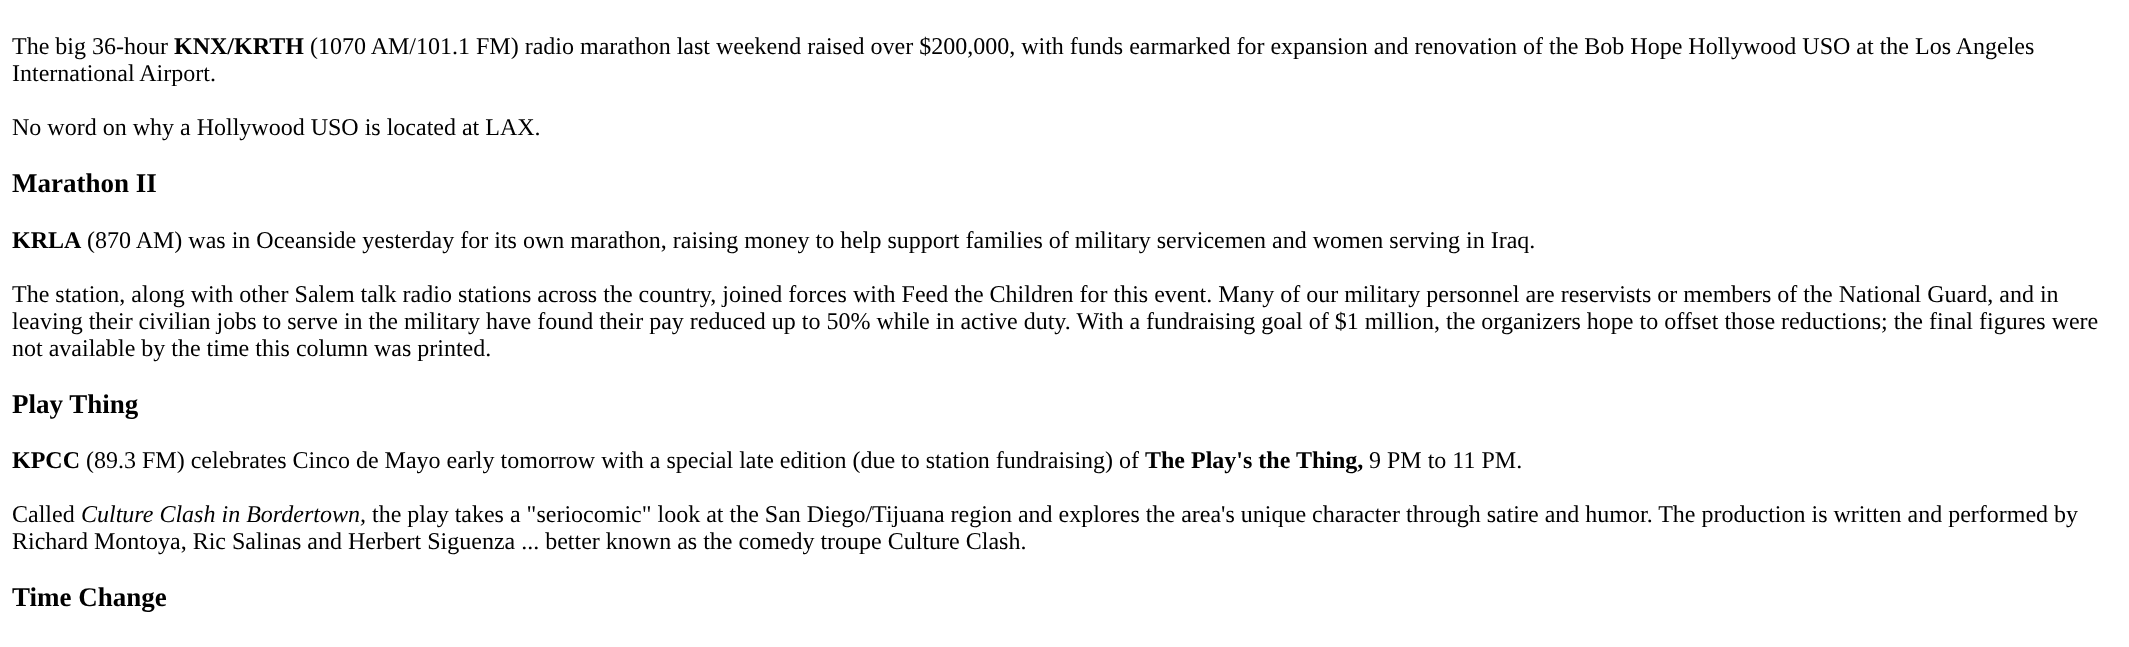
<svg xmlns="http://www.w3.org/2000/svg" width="2129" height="647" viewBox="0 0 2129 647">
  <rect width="100%" height="100%" fill="rgb(255,255,255)"/>
  <text x="12" y="54" font-family="Liberation Serif" font-size="24" fill="rgb(0,0,0)">The big 36-hour</text>
  <text x="174" y="54" font-family="Liberation Serif" font-size="24" font-weight="bold" fill="rgb(0,0,0)">KNX/KRTH</text>
  <g font-family="Liberation Serif" font-size="24" fill="rgb(0,0,0)">
    <text x="310" y="54">(1070 AM/101.1 FM) radio marathon last weekend raised over $200,000, with funds earmarked for expansion and renovation of the Bob Hope Hollywood USO at the Los Angeles</text>
    <text x="12" y="81">International Airport.</text>
    <text x="12" y="135">No word on why a Hollywood USO is located at LAX.</text>
  </g>
  <text x="12" y="192" font-family="Liberation Serif" font-size="27" font-weight="bold" fill="rgb(0,0,0)">Marathon II</text>
  <text x="12" y="248" font-family="Liberation Serif" font-size="24" font-weight="bold" fill="rgb(0,0,0)">KRLA</text>
  <g font-family="Liberation Serif" font-size="24" fill="rgb(0,0,0)">
    <text x="87" y="248">(870 AM) was in Oceanside yesterday for its own marathon, raising money to help support families of military servicemen and women serving in Iraq.</text>
    <text>
      <tspan x="12" y="302">The station, along with other Salem talk radio stations across the country, joined forces with Feed the Children for this event. Many of our military personnel are reservists or members of the National Guard, and in</tspan>
      <tspan x="12" y="329">leaving their civilian jobs to serve in the military have found their pay reduced up to 50% while in active duty. With a fundraising goal of $1 million, the organizers hope to offset those reductions; the final figures were</tspan>
      <tspan x="12" y="356">not available by the time this column was printed.</tspan>
    </text>
  </g>
  <text x="12" y="413" font-family="Liberation Serif" font-size="27" font-weight="bold" fill="rgb(0,0,0)">Play Thing</text>
  <text x="12" y="468" font-family="Liberation Serif" font-size="24" font-weight="bold" fill="rgb(0,0,0)">KPCC</text>
  <text x="86" y="468" font-family="Liberation Serif" font-size="24" fill="rgb(0,0,0)">(89.3 FM) celebrates Cinco de Mayo early tomorrow with a special late edition (due to station fundraising) of</text>
  <g font-family="Liberation Serif" font-size="24" font-weight="bold" fill="rgb(0,0,0)">
    <text x="1145" y="468">The Play's the</text>
    <text x="1296" y="468">Thing,</text>
  </g>
  <g font-family="Liberation Serif" font-size="24" fill="rgb(0,0,0)">
    <text x="1369" y="468">9 PM to 11 PM.</text>
    <text x="12" y="522">Called</text>
  </g>
  <text x="81" y="522" font-family="Liberation Serif" font-size="24" font-style="italic" fill="rgb(0,0,0)">Culture Clash in Bordertown,</text>
  <g font-family="Liberation Serif" font-size="24" fill="rgb(0,0,0)">
    <text x="372" y="522">the play takes a "seriocomic" look at the San Diego/Tijuana region and explores the area's unique character through satire and humor. The production is written and performed by</text>
    <text x="12" y="549">Richard Montoya, Ric Salinas and Herbert Siguenza ... better known as the comedy troupe Culture Clash.</text>
  </g>
  <text x="12" y="606" font-family="Liberation Serif" font-size="27" font-weight="bold" fill="rgb(0,0,0)">Time Change</text>
</svg>
